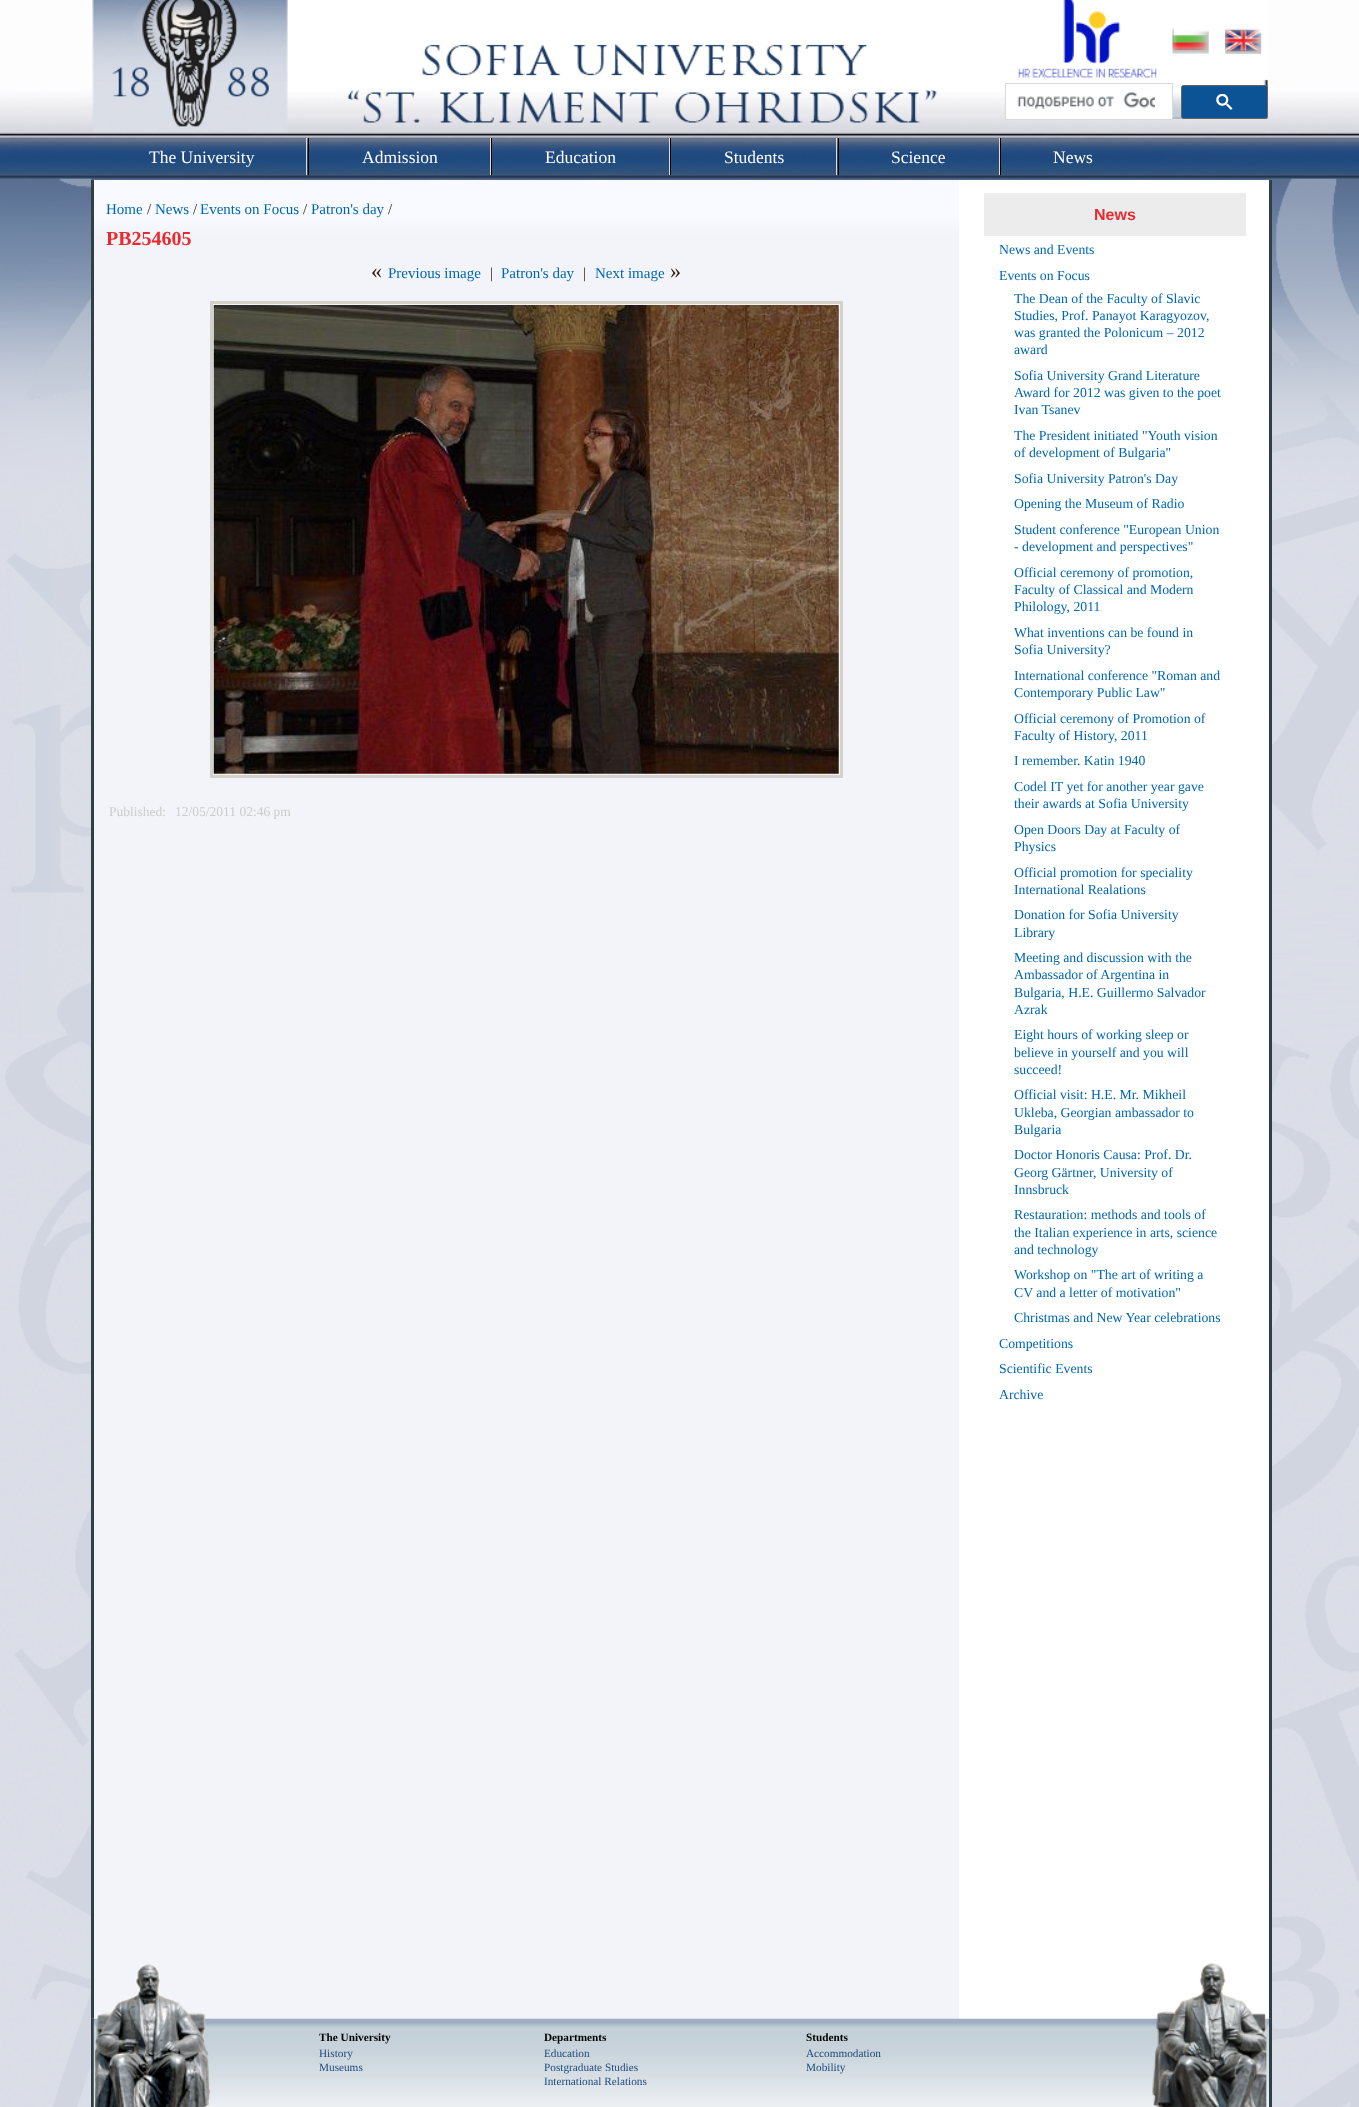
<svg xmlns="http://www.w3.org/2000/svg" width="1359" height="2107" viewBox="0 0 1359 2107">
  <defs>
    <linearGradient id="g1" gradientUnits="userSpaceOnUse" x1="526" y1="180" x2="526" y2="2019"><stop offset="0.02" stop-color="rgb(249,250,255)"/><stop offset="0.03" stop-color="rgb(243,244,249)"/></linearGradient>
  </defs>
  <rect width="100%" height="100%" fill="rgb(255,255,255)"/>
  <image x="0" y="0" width="1359" height="2107" href="pic1.png"/>
  <image x="92" y="0" width="1176" height="133" href="pic2.png"/>
  <image x="1018" y="0" width="139" height="78" href="pic3.png"/>
  <image x="1172" y="28" width="37" height="26" href="pic4.png"/>
  <image x="1225" y="28" width="37" height="26" href="pic5.png"/>
  <rect x="1006" y="91" width="166" height="28" fill="rgb(255,255,255)"/>
  <rect x="1005.5" y="83.5" width="167" height="36" fill="none" stroke="rgb(217,217,217)"/>
  <image x="1017" y="92" width="138" height="17" href="pic6.png"/>
  <rect x="1181.5" y="85.5" width="86" height="33" rx="2" fill="rgb(11,83,148)" stroke="rgb(102,102,102)"/>
  <image x="1216" y="94" width="17" height="16" href="pic7.png"/>
  <image x="91" y="132" width="1175" height="48" href="pic8.png"/>
  <rect x="306" y="138" width="1" height="37" fill="rgb(229,216,199)"/>
  <text x="149" y="163" font-family="Liberation Serif" font-size="17.5" fill="rgb(253,252,251)">The University</text>
  <rect x="490" y="138" width="1" height="37" fill="rgb(229,216,199)"/>
  <rect x="308" y="138" width="1" height="37" fill="rgb(0,0,0)"/>
  <text x="362" y="163" font-family="Liberation Serif" font-size="17.5" fill="rgb(253,252,251)">Admission</text>
  <rect x="669" y="138" width="1" height="37" fill="rgb(229,216,199)"/>
  <rect x="491" y="138" width="1" height="37" fill="rgb(0,0,0)"/>
  <text x="545" y="163" font-family="Liberation Serif" font-size="17.5" fill="rgb(253,252,251)">Education</text>
  <rect x="836" y="138" width="1" height="37" fill="rgb(229,216,199)"/>
  <rect x="670" y="138" width="1" height="37" fill="rgb(0,0,0)"/>
  <text x="724" y="163" font-family="Liberation Serif" font-size="17.5" fill="rgb(253,252,251)">Students</text>
  <rect x="999" y="138" width="1" height="37" fill="rgb(229,216,199)"/>
  <rect x="838" y="138" width="1" height="37" fill="rgb(0,0,0)"/>
  <text x="891" y="163" font-family="Liberation Serif" font-size="17.5" fill="rgb(253,252,251)">Science</text>
  <rect x="1000" y="138" width="1" height="37" fill="rgb(0,0,0)"/>
  <text x="1053" y="163" font-family="Liberation Serif" font-size="17.5" fill="rgb(253,252,251)">News</text>
  <rect x="959" y="180" width="310" height="1839" fill="rgb(255,255,255)"/>
  <rect x="1269" y="180" width="3" height="1839" fill="rgb(47,63,69)"/>
  <rect x="91" y="180" width="3" height="1839" fill="rgb(47,63,69)"/>
  <rect x="94" y="180" width="865" height="1839" fill="url(#g1)"/>
  <text x="106" y="214" font-family="Liberation Serif" font-size="15" fill="rgb(0,102,177)">Home</text>
  <text x="147" y="214" font-family="Liberation Serif" font-size="15" fill="rgb(51,31,9)">/</text>
  <text x="155" y="214" font-family="Liberation Serif" font-size="15" fill="rgb(0,102,177)">News</text>
  <text x="193" y="214" font-family="Liberation Serif" font-size="15" fill="rgb(51,31,9)">/</text>
  <text x="200" y="214" font-family="Liberation Serif" font-size="15" fill="rgb(0,102,177)">Events on Focus</text>
  <text x="303" y="214" font-family="Liberation Serif" font-size="15" fill="rgb(51,31,9)">/</text>
  <text x="311" y="214" font-family="Liberation Serif" font-size="15" fill="rgb(0,102,177)">Patron's day</text>
  <text x="388" y="214" font-family="Liberation Serif" font-size="15" fill="rgb(51,31,9)">/</text>
  <text x="106" y="245" font-family="Liberation Serif" font-size="20" font-weight="bold" fill="rgb(234,42,47)">PB254605</text>
  <text x="371" y="278" font-family="Liberation Serif" font-size="22" fill="rgb(51,31,9)">«</text>
  <text x="388" y="278" font-family="Liberation Serif" font-size="15" fill="rgb(0,102,177)">Previous image</text>
  <text x="490" y="278" font-family="Liberation Serif" font-size="15" fill="rgb(51,31,9)">|</text>
  <text x="501" y="278" font-family="Liberation Serif" font-size="15" fill="rgb(0,102,177)">Patron's day</text>
  <text x="583" y="278" font-family="Liberation Serif" font-size="15" fill="rgb(51,31,9)">|</text>
  <text x="595" y="278" font-family="Liberation Serif" font-size="15" fill="rgb(0,102,177)">Next image</text>
  <text x="670" y="278" font-family="Liberation Serif" font-size="22" fill="rgb(51,31,9)">»</text>
  <rect x="211.5" y="302.5" width="630" height="474" fill="none" stroke="rgb(212,210,200)" stroke-width="3"/>
  <image x="213" y="305" width="626" height="469" href="pic9.png"/>
  <g font-family="Liberation Serif" font-size="13.5" fill="rgb(204,204,204)">
    <text x="109" y="816">Published:</text>
    <text x="175" y="816">12/05/2011 02:46 pm</text>
  </g>
  <rect x="984" y="193" width="262" height="43" fill="rgb(236,236,237)"/>
  <text x="1094" y="220" font-family="Liberation Sans" font-size="16" font-weight="bold" fill="rgb(234,42,47)">News</text>
  <g font-family="Liberation Serif" font-size="13.75" fill="rgb(0,102,177)">
    <text>
      <tspan x="999" y="254">News and Events</tspan>
      <tspan x="999" y="280">Events on Focus</tspan>
    </text>
    <text>
      <tspan x="1014" y="303">The Dean of the Faculty of Slavic</tspan>
      <tspan x="1014" y="320">Studies, Prof. Panayot Karagyozov,</tspan>
      <tspan x="1014" y="337">was granted the Polonicum – 2012</tspan>
      <tspan x="1014" y="354">award</tspan>
      <tspan x="1014" y="380">Sofia University Grand Literature</tspan>
      <tspan x="1014" y="397">Award for 2012 was given to the poet</tspan>
      <tspan x="1014" y="414">Ivan Tsanev</tspan>
      <tspan x="1014" y="440">The President initiated "Youth vision</tspan>
      <tspan x="1014" y="457">of development of Bulgaria"</tspan>
      <tspan x="1014" y="483">Sofia University Patron's Day</tspan>
      <tspan x="1014" y="508">Opening the Museum of Radio</tspan>
      <tspan x="1014" y="534">Student conference "European Union</tspan>
      <tspan x="1014" y="551">- development and perspectives"</tspan>
      <tspan x="1014" y="577">Official ceremony of promotion,</tspan>
      <tspan x="1014" y="594">Faculty of Classical and Modern</tspan>
      <tspan x="1014" y="611">Philology, 2011</tspan>
      <tspan x="1014" y="637">What inventions can be found in</tspan>
      <tspan x="1014" y="654">Sofia University?</tspan>
      <tspan x="1014" y="680">International conference "Roman and</tspan>
      <tspan x="1014" y="697">Contemporary Public Law"</tspan>
      <tspan x="1014" y="723">Official ceremony of Promotion of</tspan>
      <tspan x="1014" y="740">Faculty of History, 2011</tspan>
      <tspan x="1014" y="765">I remember. Katin 1940</tspan>
      <tspan x="1014" y="791">Codel IT yet for another year gave</tspan>
      <tspan x="1014" y="808">their awards at Sofia University</tspan>
      <tspan x="1014" y="834">Open Doors Day at Faculty of</tspan>
      <tspan x="1014" y="851">Physics</tspan>
      <tspan x="1014" y="877">Official promotion for speciality</tspan>
      <tspan x="1014" y="894">International Realations</tspan>
      <tspan x="1014" y="919">Donation for Sofia University</tspan>
      <tspan x="1014" y="937">Library</tspan>
      <tspan x="1014" y="962">Meeting and discussion with the</tspan>
      <tspan x="1014" y="979">Ambassador of Argentina in</tspan>
      <tspan x="1014" y="997">Bulgaria, H.E. Guillermo Salvador</tspan>
      <tspan x="1014" y="1014">Azrak</tspan>
      <tspan x="1014" y="1039">Eight hours of working sleep or</tspan>
      <tspan x="1014" y="1057">believe in yourself and you will</tspan>
      <tspan x="1014" y="1074">succeed!</tspan>
      <tspan x="1014" y="1099">Official visit: H.E. Mr. Mikheil</tspan>
      <tspan x="1014" y="1117">Ukleba, Georgian ambassador to</tspan>
      <tspan x="1014" y="1134">Bulgaria</tspan>
      <tspan x="1014" y="1159">Doctor Honoris Causa: Prof. Dr.</tspan>
      <tspan x="1014" y="1177">Georg Gärtner, University of</tspan>
      <tspan x="1014" y="1194">Innsbruck</tspan>
      <tspan x="1014" y="1219">Restauration: methods and tools of</tspan>
      <tspan x="1014" y="1237">the Italian experience in arts, science</tspan>
      <tspan x="1014" y="1254">and technology</tspan>
      <tspan x="1014" y="1279">Workshop on "The art of writing a</tspan>
      <tspan x="1014" y="1297">CV and a letter of motivation"</tspan>
      <tspan x="1014" y="1322">Christmas and New Year celebrations</tspan>
    </text>
    <text>
      <tspan x="999" y="1348">Competitions</tspan>
      <tspan x="999" y="1373">Scientific Events</tspan>
      <tspan x="999" y="1399">Archive</tspan>
    </text>
  </g>
  <image x="91" y="2018" width="1181" height="89" href="pic11.png"/>
  <rect x="91" y="2019" width="3" height="88" fill="rgb(47,63,69)"/>
  <image x="93" y="1963" width="119" height="144" href="pic10.png"/>
  <rect x="1269" y="2019" width="3" height="88" fill="rgb(47,63,69)"/>
  <text x="319" y="2041" font-family="Liberation Serif" font-size="11.25" font-weight="bold" fill="rgb(0,0,0)">The University</text>
  <g font-family="Liberation Serif" font-size="11.25" fill="rgb(31,74,127)">
    <text>
      <tspan x="319" y="2057">History</tspan>
      <tspan x="319" y="2071">Museums</tspan>
    </text>
  </g>
  <text x="544" y="2041" font-family="Liberation Serif" font-size="11.25" font-weight="bold" fill="rgb(0,0,0)">Departments</text>
  <g font-family="Liberation Serif" font-size="11.25" fill="rgb(31,74,127)">
    <text>
      <tspan x="544" y="2057">Еducation</tspan>
      <tspan x="544" y="2071">Postgraduate Studies</tspan>
      <tspan x="544" y="2085">International Relations</tspan>
    </text>
  </g>
  <text x="806" y="2041" font-family="Liberation Serif" font-size="11.25" font-weight="bold" fill="rgb(0,0,0)">Students</text>
  <g font-family="Liberation Serif" font-size="11.25" fill="rgb(31,74,127)">
    <text>
      <tspan x="806" y="2057">Accommodation</tspan>
      <tspan x="806" y="2071">Mobility</tspan>
    </text>
  </g>
  <image x="1152" y="1962" width="117" height="145" href="pic12.png"/>
</svg>
